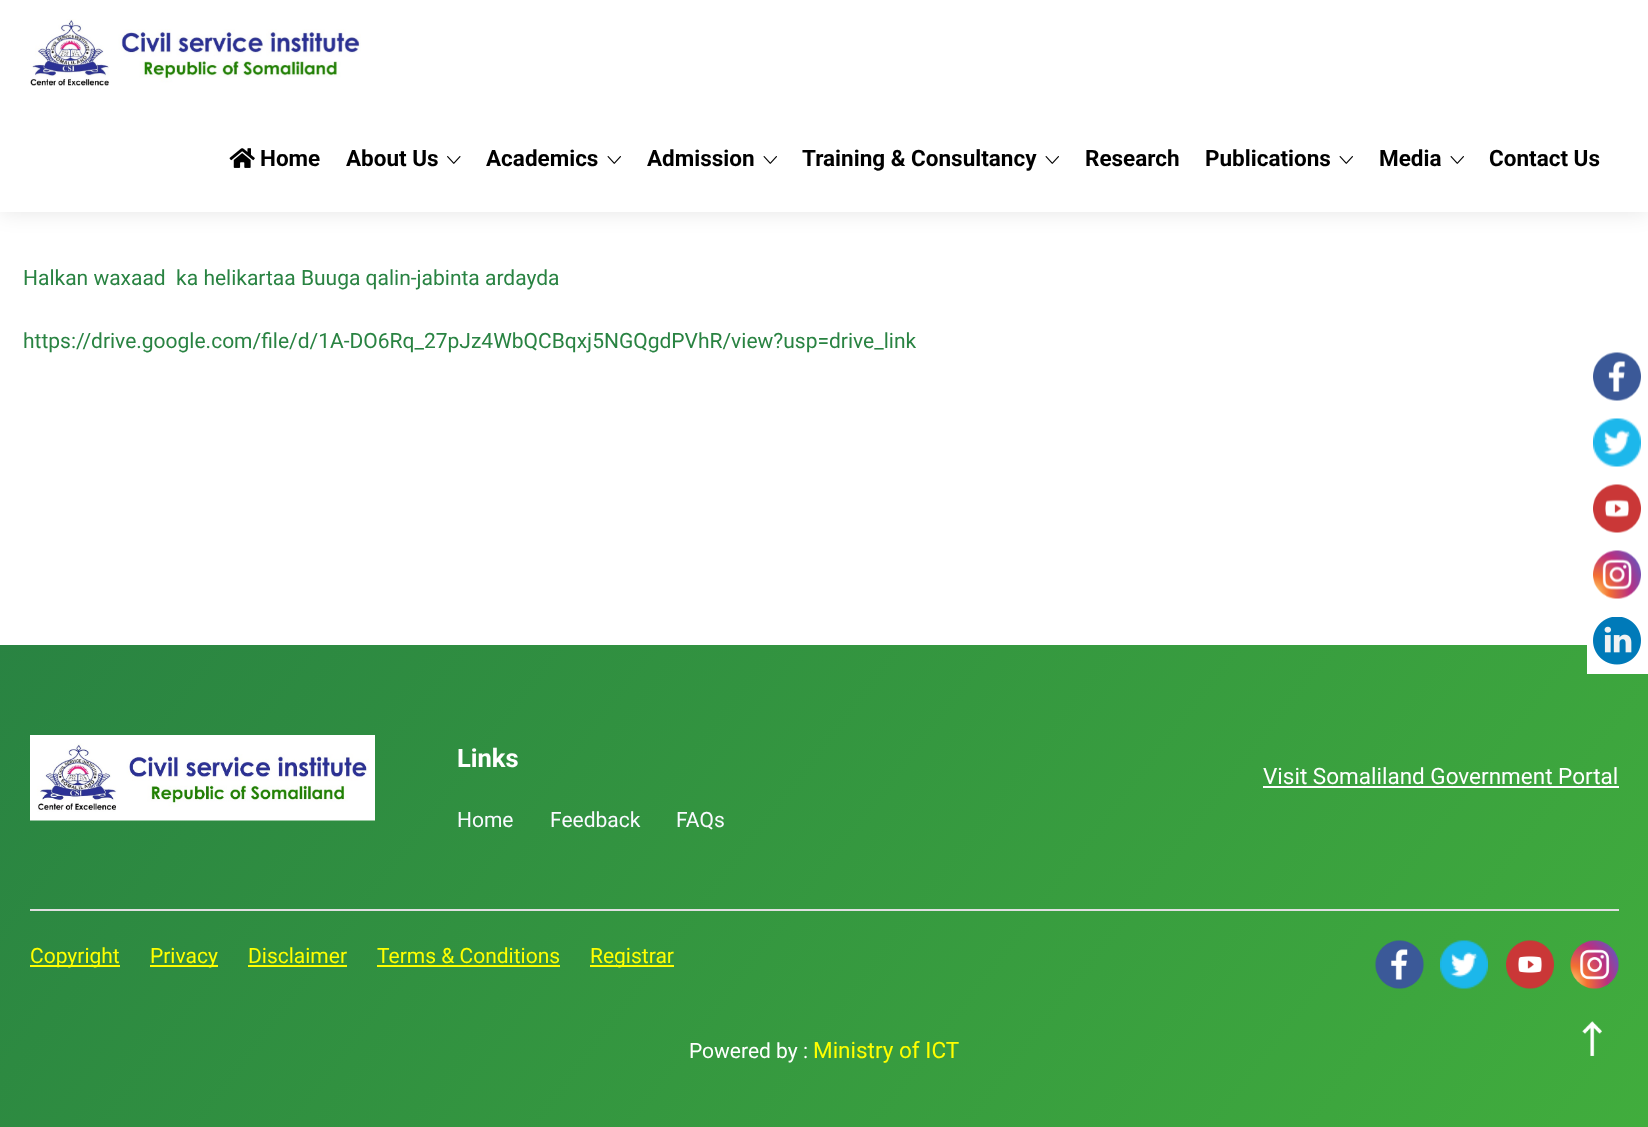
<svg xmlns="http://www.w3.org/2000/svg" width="1648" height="1127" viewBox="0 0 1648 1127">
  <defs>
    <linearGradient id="g1" gradientUnits="userSpaceOnUse" x1="183" y1="396" x2="1465" y2="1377"><stop offset="0" stop-color="rgb(41,131,66)"/><stop offset="1" stop-color="rgb(65,173,61)"/></linearGradient>
  </defs>
  <rect width="100%" height="100%" fill="rgb(255,255,255)"/>
  <rect x="0" y="0" width="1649" height="212" fill="rgba(0,0,0,0.1)" filter="blur(11px)"/>
  <rect x="0" y="0" width="1648" height="212" fill="rgb(255,255,255)"/>
  <image x="30" y="19" width="331" height="67" href="pic1.png"/>
  <image x="229" y="148" width="26" height="20" href="pic2.png"/>
  <g font-family="Roboto" font-size="22.5" font-weight="bold" fill="rgb(0,0,0)">
    <text x="260" y="166">Home</text>
    <text x="346" y="166">About Us</text>
  </g>
  <image x="447" y="156" width="14" height="8" href="pic3.png"/>
  <text x="486" y="166" font-family="Roboto" font-size="22.5" font-weight="bold" fill="rgb(0,0,0)">Academics</text>
  <image x="607" y="156" width="14" height="8" href="pic4.png"/>
  <text x="647" y="166" font-family="Roboto" font-size="22.5" font-weight="bold" fill="rgb(0,0,0)">Admission</text>
  <image x="763" y="156" width="14" height="8" href="pic4.png"/>
  <text x="802" y="166" font-family="Roboto" font-size="22.5" font-weight="bold" fill="rgb(0,0,0)">Training &amp; Consultancy</text>
  <image x="1045" y="156" width="14" height="8" href="pic4.png"/>
  <g font-family="Roboto" font-size="22.5" font-weight="bold" fill="rgb(0,0,0)">
    <text x="1085" y="166">Research</text>
    <text x="1205" y="166">Publications</text>
  </g>
  <image x="1339" y="156" width="14" height="8" href="pic4.png"/>
  <text x="1379" y="166" font-family="Roboto" font-size="22.5" font-weight="bold" fill="rgb(0,0,0)">Media</text>
  <image x="1450" y="156" width="14" height="8" href="pic4.png"/>
  <text x="1489" y="166" font-family="Roboto" font-size="22.5" font-weight="bold" fill="rgb(0,0,0)">Contact Us</text>
  <g font-family="Roboto" font-size="21" fill="rgb(41,131,66)">
    <text x="23" y="285" xml:space="preserve">Halkan waxaad  ka helikartaa Buuga qalin-jabinta ardayda</text>
    <text x="23" y="348">https://drive.google.com/file/d/1A-DO6Rq_27pJz4WbQCBqxj5NGQgdPVhR/view?usp=drive_link</text>
  </g>
  <rect x="0" y="645" width="1648" height="482" fill="url(#g1)"/>
  <rect x="30" y="909" width="1589" height="2" fill="rgb(224,224,225)"/>
  <image x="30" y="735" width="345" height="86" href="pic5.png"/>
  <text x="457" y="767" font-family="Roboto" font-size="25.5" font-weight="bold" fill="rgb(255,255,255)">Links</text>
  <g font-family="Roboto" font-size="21" fill="rgb(249,250,255)">
    <text x="457" y="827">Home</text>
    <text x="550" y="827">Feedback</text>
    <text x="676" y="827">FAQs</text>
  </g>
  <text x="1263" y="784" font-family="Roboto" font-size="22.5" fill="rgb(255,255,255)">Visit Somaliland Government Portal</text>
  <rect x="1263" y="786" width="356" height="2" fill="rgb(255,255,255)"/>
  <rect x="30" y="965" width="90" height="2" fill="rgb(255,255,0)"/>
  <text x="30" y="963" font-family="Roboto" font-size="21" fill="rgb(255,255,0)">Copyright</text>
  <rect x="150" y="965" width="68" height="2" fill="rgb(255,255,0)"/>
  <g font-family="Roboto" font-size="21" fill="rgb(255,255,0)">
    <text x="150" y="963">Privacy</text>
    <text x="248" y="963">Disclaimer</text>
  </g>
  <rect x="248" y="965" width="99" height="2" fill="rgb(255,255,0)"/>
  <text x="377" y="963" font-family="Roboto" font-size="21" fill="rgb(255,255,0)">Terms &amp; Conditions</text>
  <rect x="377" y="965" width="183" height="2" fill="rgb(255,255,0)"/>
  <rect x="590" y="965" width="84" height="2" fill="rgb(255,255,0)"/>
  <text x="590" y="963" font-family="Roboto" font-size="21" fill="rgb(255,255,0)">Registrar</text>
  <image x="1375" y="940" width="49" height="49" href="pic6.png"/>
  <image x="1440" y="940" width="48" height="49" href="pic7.png"/>
  <image x="1506" y="940" width="48" height="49" href="pic8.png"/>
  <image x="1570" y="940" width="49" height="49" href="pic9.png"/>
  <text x="689" y="1058" font-family="Roboto" font-size="21" fill="rgb(255,255,255)">Powered by :</text>
  <text x="813" y="1058" font-family="Roboto" font-size="22.5" fill="rgb(255,255,0)">Ministry of ICT</text>
  <image x="1593" y="352" width="48" height="49" href="pic10.png"/>
  <image x="1593" y="418" width="48" height="49" href="pic11.png"/>
  <image x="1593" y="484" width="48" height="49" href="pic12.png"/>
  <image x="1593" y="550" width="48" height="49" href="pic13.png"/>
  <rect x="1587" y="645" width="61" height="29" fill="rgb(255,255,255)"/>
  <image x="1593" y="617" width="48" height="48" href="pic14.png"/>
  <image x="1582" y="1021" width="20" height="35" href="pic15.png"/>
</svg>
